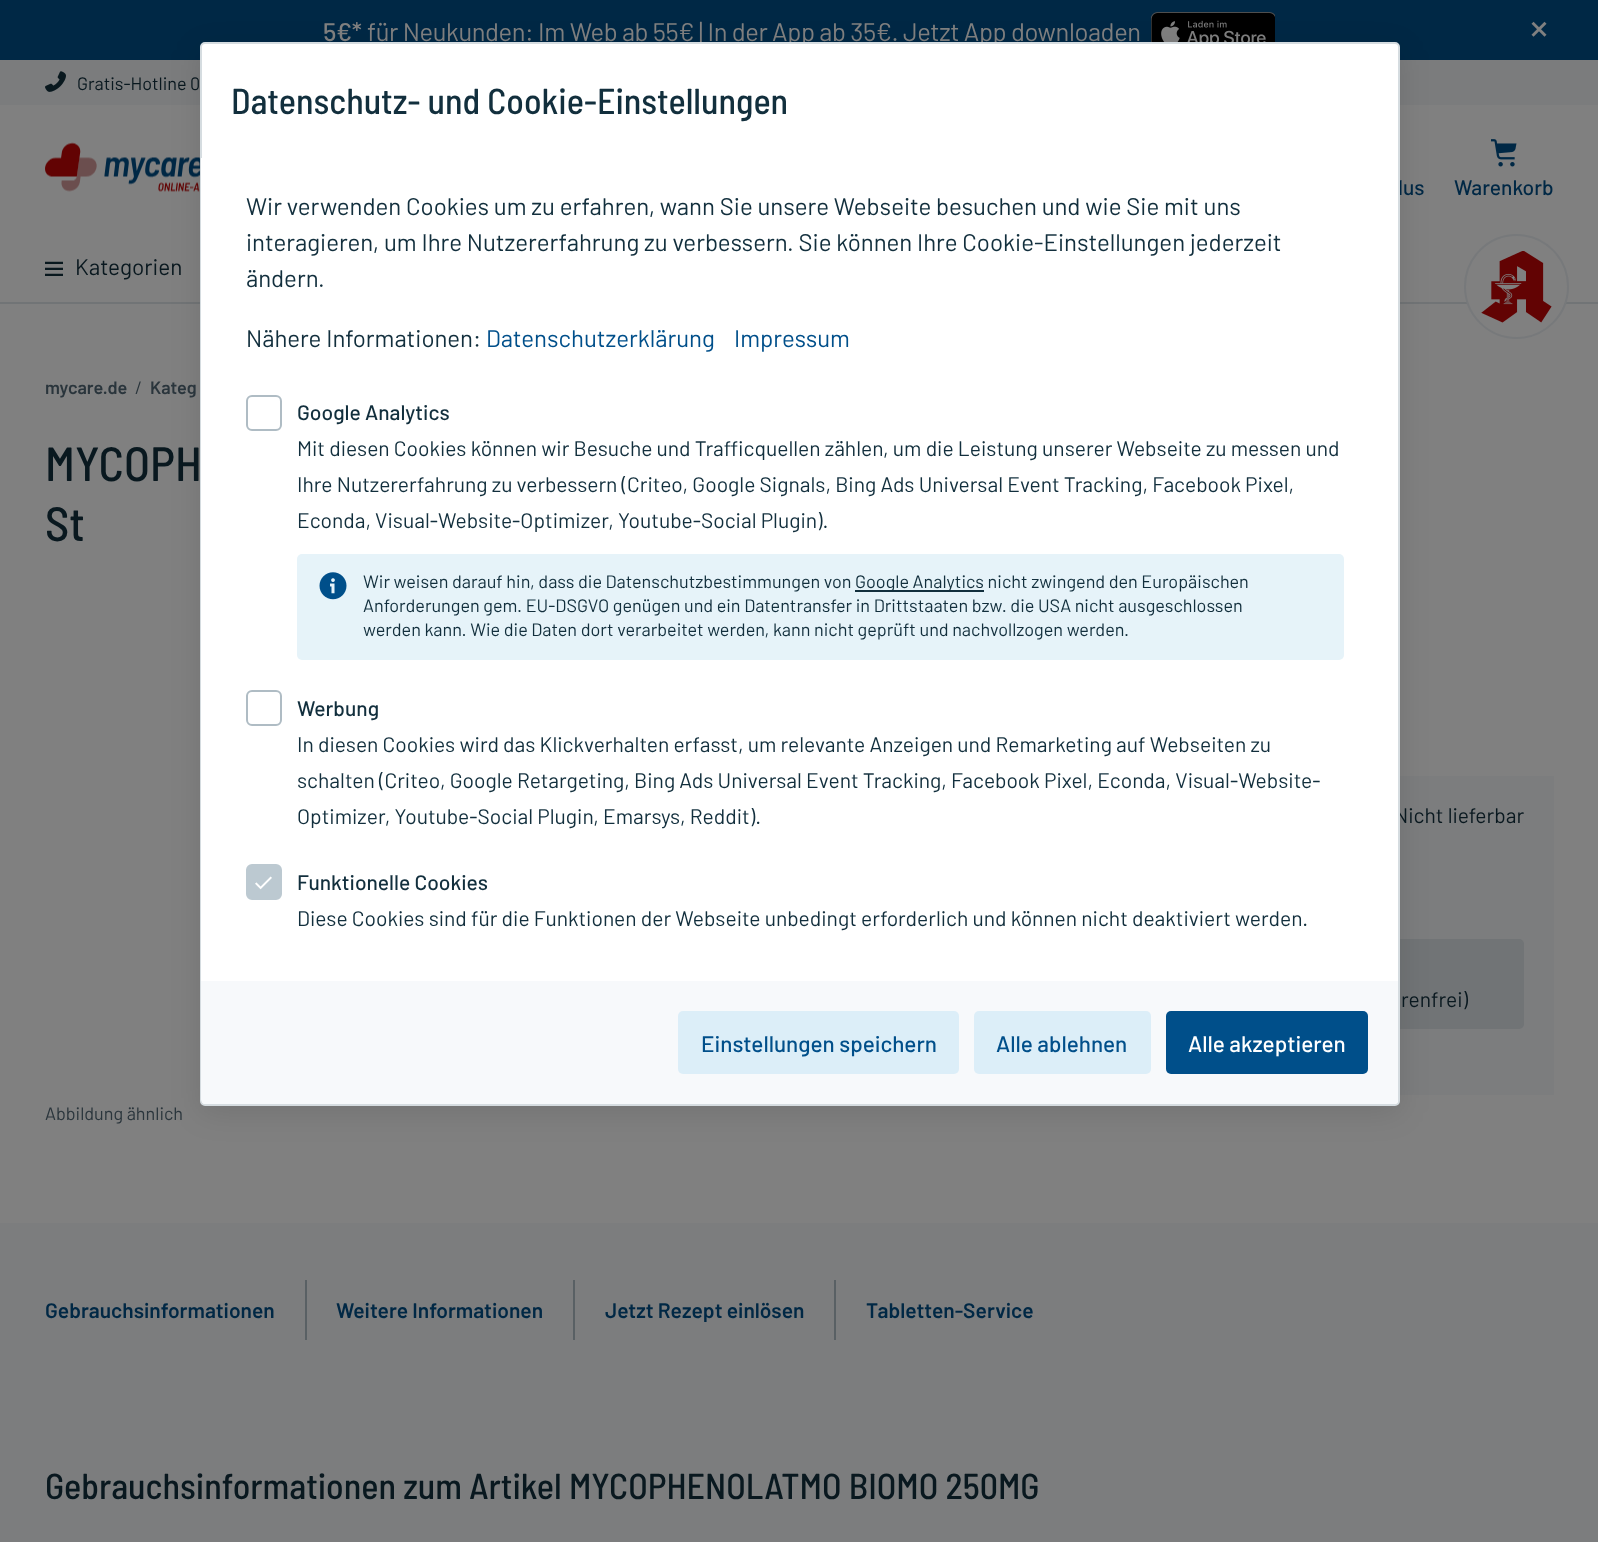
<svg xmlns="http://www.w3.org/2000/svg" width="1598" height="1542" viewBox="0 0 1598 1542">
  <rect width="100%" height="100%" fill="rgb(128,128,128)"/>
  <rect x="0" y="302" width="1598" height="2" fill="rgb(113,116,118)"/>
  <rect x="0" y="0" width="1598" height="60" fill="rgb(0,40,69)"/>
  <text x="323" y="41" font-family="Barlow" font-size="25.5" font-weight="500" letter-spacing="-0.38" fill="rgb(128,128,128)">5€*</text>
  <text x="367" y="41" font-family="Barlow" font-size="25.5" letter-spacing="-0.38" fill="rgb(128,128,128)">für Neukunden: Im Web ab 55€ | In der App ab 35€. Jetzt App downloaden</text>
  <image x="1151" y="12" width="124" height="30" href="pic1.png"/>
  <image x="1531" y="21" width="16" height="16" href="pic2.png"/>
  <rect x="0" y="60" width="1598" height="45" fill="rgb(123,124,125)"/>
  <image x="45" y="71" width="21" height="21" href="pic3.png"/>
  <text x="77" y="90" font-family="Barlow" font-size="18" fill="rgb(9,24,31)">Gratis-Hotline 0</text>
  <image x="45" y="142" width="155" height="50" href="pic4.png"/>
  <text x="1398" y="195" font-family="Barlow" font-size="21" font-weight="500" fill="rgb(0,40,69)">lus</text>
  <image x="1491" y="139" width="26" height="28" href="pic5.png"/>
  <text x="1454" y="195" font-family="Barlow" font-size="21" font-weight="500" fill="rgb(0,40,69)">Warenkorb</text>
  <image x="45" y="261" width="18" height="15" href="pic6.png"/>
  <text x="75" y="275" font-family="Barlow" font-size="22.5" fill="rgb(9,24,31)">Kategorien</text>
  <circle cx="1516.5" cy="286.5" r="51.5" fill="rgb(128,128,128)" stroke="rgb(119,121,123)" stroke-width="2"/>
  <image x="1481" y="251" width="71" height="72" href="pic7.png"/>
  <rect x="1400" y="776" width="154" height="319" fill="rgb(124,125,126)"/>
  <rect x="845" y="939" width="679" height="90" rx="5" fill="rgb(113,116,118)"/>
  <rect x="200" y="50" width="1200" height="1063" rx="5" fill="rgba(0,0,0,0.1)" filter="blur(15px)"/>
  <text x="1394" y="823" font-family="Barlow" font-size="21" fill="rgb(9,24,31)">Nicht lieferbar</text>
  <rect x="201" y="43" width="1198" height="1062" rx="4" fill="rgb(255,255,255)" stroke="rgb(213,220,224)" stroke-width="2"/>
  <text x="231" y="114" font-family="Barlow Semi Condensed" font-size="36" font-weight="500" fill="rgb(18,47,61)">Datenschutz- und Cookie-Einstellungen</text>
  <rect x="201" y="158" width="1" height="823" fill="rgb(255,255,255)"/>
  <g font-family="Barlow" font-size="24" fill="rgb(18,47,61)">
    <text>
      <tspan x="246" y="215">Wir verwenden Cookies um zu erfahren, wann Sie unsere Webseite besuchen und wie Sie mit uns</tspan>
      <tspan x="246" y="251">interagieren, um Ihre Nutzererfahrung zu verbessern. Sie können Ihre Cookie-Einstellungen jederzeit</tspan>
      <tspan x="246" y="287">ändern.</tspan>
    </text>
    <text x="246" y="347">Nähere Informationen:</text>
  </g>
  <g font-family="Barlow" font-size="24" fill="rgb(0,79,138)">
    <text x="486" y="347">Datenschutzerklärung</text>
    <text x="734" y="347">Impressum</text>
  </g>
  <rect x="247" y="396" width="34" height="34" rx="5" fill="none" stroke="rgb(175,188,196)" stroke-width="2"/>
  <text x="297" y="420" font-family="Barlow" font-size="21" font-weight="500" fill="rgb(18,47,61)">Google Analytics</text>
  <g font-family="Barlow" font-size="21" fill="rgb(18,47,61)">
    <text>
      <tspan x="297" y="456">Mit diesen Cookies können wir Besuche und Trafficquellen zählen, um die Leistung unserer Webseite zu messen und</tspan>
      <tspan x="297" y="492">Ihre Nutzererfahrung zu verbessern (Criteo, Google Signals, Bing Ads Universal Event Tracking, Facebook Pixel,</tspan>
      <tspan x="297" y="528">Econda, Visual-Website-Optimizer, Youtube-Social Plugin).</tspan>
    </text>
  </g>
  <rect x="297" y="554" width="1047" height="106" rx="5" fill="rgb(230,243,249)"/>
  <image x="319" y="572" width="28" height="28" href="pic8.png"/>
  <text x="363" y="588" font-family="Barlow" font-size="18" fill="rgb(18,47,61)">Wir weisen darauf hin, dass die Datenschutzbestimmungen von</text>
  <rect x="855" y="590" width="129" height="2" fill="rgb(18,47,61)"/>
  <g font-family="Barlow" font-size="18" fill="rgb(18,47,61)">
    <text x="855" y="588">Google Analytics nicht zwingend den Europäischen</text>
    <text>
      <tspan x="363" y="612">Anforderungen gem. EU-DSGVO genügen und ein Datentransfer in Drittstaaten bzw. die USA nicht ausgeschlossen</tspan>
      <tspan x="363" y="636">werden kann. Wie die Daten dort verarbeitet werden, kann nicht geprüft und nachvollzogen werden.</tspan>
    </text>
  </g>
  <rect x="247" y="691" width="34" height="34" rx="5" fill="none" stroke="rgb(175,188,196)" stroke-width="2"/>
  <text x="297" y="716" font-family="Barlow" font-size="21" font-weight="500" fill="rgb(18,47,61)">Werbung</text>
  <g font-family="Barlow" font-size="21" fill="rgb(18,47,61)">
    <text>
      <tspan x="297" y="752">In diesen Cookies wird das Klickverhalten erfasst, um relevante Anzeigen und Remarketing auf Webseiten zu</tspan>
      <tspan x="297" y="788">schalten (Criteo, Google Retargeting, Bing Ads Universal Event Tracking, Facebook Pixel, Econda, Visual-Website-</tspan>
      <tspan x="297" y="824">Optimizer, Youtube-Social Plugin, Emarsys, Reddit).</tspan>
    </text>
  </g>
  <rect x="247" y="865" width="34" height="34" rx="5" fill="rgb(188,201,209)" stroke="rgb(188,201,209)" stroke-width="2"/>
  <image x="255" y="876" width="17" height="14" href="pic9.png"/>
  <text x="297" y="890" font-family="Barlow" font-size="21" font-weight="500" fill="rgb(18,47,61)">Funktionelle Cookies</text>
  <text x="297" y="926" font-family="Barlow" font-size="21" fill="rgb(18,47,61)">Diese Cookies sind für die Funktionen der Webseite unbedingt erforderlich und können nicht deaktiviert werden.</text>
  <path d="M201 981H1398V1099C1398 1102 1396 1104 1393 1104H206C203 1104 201 1102 201 1099Z" fill="rgb(247,249,251)"/>
  <rect x="678" y="1011" width="281" height="63" rx="5" fill="rgb(220,238,248)"/>
  <text x="701" y="1052" font-family="Barlow" font-size="22.5" font-weight="500" fill="rgb(0,79,138)">Einstellungen speichern</text>
  <rect x="974" y="1011" width="177" height="63" rx="5" fill="rgb(220,238,248)"/>
  <text x="996" y="1052" font-family="Barlow" font-size="22.5" font-weight="500" fill="rgb(0,79,138)">Alle ablehnen</text>
  <rect x="1166" y="1011" width="202" height="63" rx="5" fill="rgb(0,79,138)"/>
  <text x="1188" y="1052" font-family="Barlow" font-size="22.5" font-weight="500" fill="rgb(255,255,255)">Alle akzeptieren</text>
  <text x="45" y="394" font-family="Barlow" font-size="18" font-weight="600" fill="rgb(42,53,60)">mycare.de</text>
  <text x="135" y="394" font-family="Barlow" font-size="18" fill="rgb(42,53,60)">/</text>
  <text x="150" y="394" font-family="Barlow" font-size="18" font-weight="600" fill="rgb(42,53,60)">Kateg</text>
  <g font-family="Barlow Semi Condensed" font-size="48" font-weight="500" fill="rgb(9,24,31)">
    <text>
      <tspan x="45" y="481">MYCOPH</tspan>
      <tspan x="45" y="541">St</tspan>
    </text>
  </g>
  <text x="45" y="1120" font-family="Barlow" font-size="18" fill="rgb(42,53,60)">Abbildung ähnlich</text>
  <text x="1401" y="1007" font-family="Barlow" font-size="21" fill="rgb(9,24,31)">renfrei)</text>
  <rect x="0" y="1223" width="1598" height="319" fill="rgb(124,125,126)"/>
  <rect x="305" y="1280" width="2" height="60" fill="rgb(89,96,100)"/>
  <text x="45" y="1318" font-family="Barlow" font-size="21" font-weight="600" fill="rgb(0,40,69)">Gebrauchsinformationen</text>
  <rect x="573" y="1280" width="2" height="60" fill="rgb(89,96,100)"/>
  <text x="336" y="1318" font-family="Barlow" font-size="21" font-weight="600" fill="rgb(0,40,69)">Weitere Informationen</text>
  <rect x="834" y="1280" width="2" height="60" fill="rgb(89,96,100)"/>
  <g font-family="Barlow" font-size="21" font-weight="600" fill="rgb(0,40,69)">
    <text x="605" y="1318">Jetzt Rezept einlösen</text>
    <text x="866" y="1318">Tabletten-Service</text>
  </g>
  <text x="45" y="1499" font-family="Barlow Semi Condensed" font-size="36" font-weight="500" fill="rgb(9,24,31)">Gebrauchsinformationen zum Artikel MYCOPHENOLATMO BIOMO 250MG</text>
</svg>
